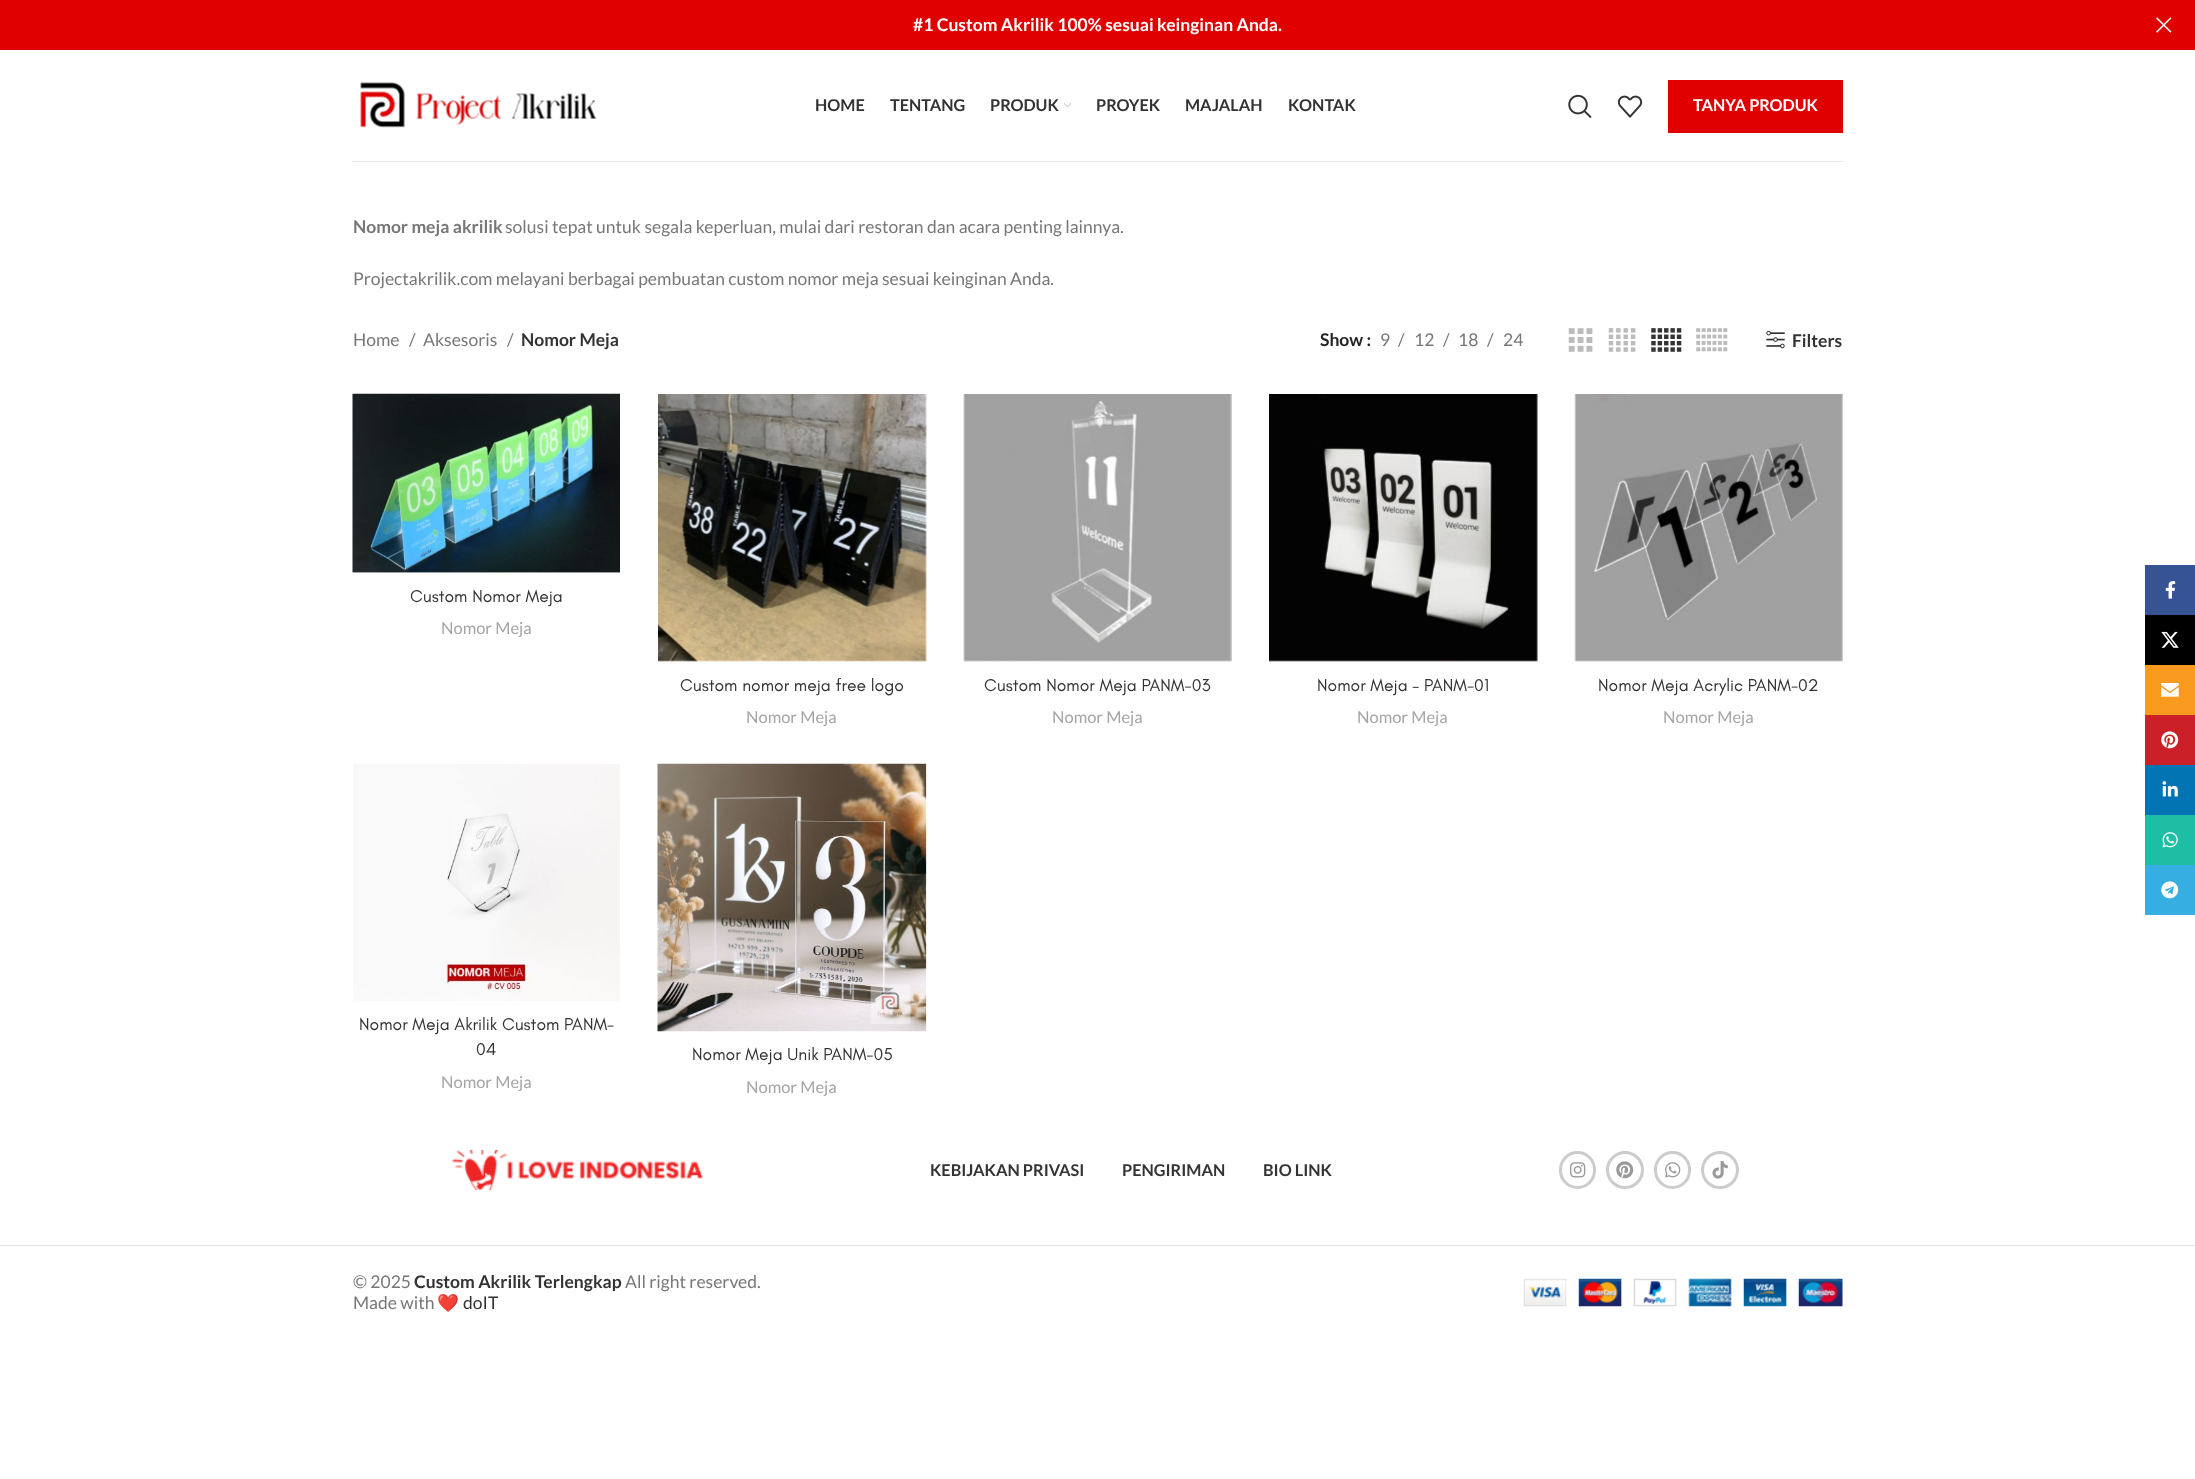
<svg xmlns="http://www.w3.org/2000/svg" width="2195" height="1479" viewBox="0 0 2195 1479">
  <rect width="100%" height="100%" fill="rgb(255,255,255)"/>
  <rect x="0" y="0" width="2195" height="50" fill="rgb(224,0,0)"/>
  <text x="913" y="31" font-family="Lato" font-size="17.5" font-weight="bold" fill="rgb(255,255,255)">#1 Custom Akrilik 100% sesuai keinginan Anda.</text>
  <image x="2156" y="17" width="16" height="16" href="pic1.png"/>
  <path d="M2156 32.5C2152 28.5 2152 21.5 2156 17.5" fill="none" stroke="rgb(224,0,0)" stroke-width="1.2"/>
  <rect x="353" y="161" width="1490" height="1" fill="rgb(230,230,230)"/>
  <image x="360" y="82" width="237" height="46" href="pic2.png"/>
  <g font-family="Lato" font-size="16.25" font-weight="bold" fill="rgb(51,51,51)">
    <text x="815" y="111">HOME</text>
    <text x="890" y="111">TENTANG</text>
    <text x="990" y="111">PRODUK</text>
  </g>
  <image x="1064" y="103" width="8" height="5" href="pic3.png"/>
  <g font-family="Lato" font-size="16.25" font-weight="bold" fill="rgb(51,51,51)">
    <text x="1096" y="111">PROYEK</text>
    <text x="1185" y="111">MAJALAH</text>
    <text x="1288" y="111">KONTAK</text>
  </g>
  <image x="1568" y="94" width="24" height="25" href="pic4.png"/>
  <image x="1617" y="95" width="26" height="23" href="pic5.png"/>
  <rect x="1668" y="80" width="175" height="53" fill="rgb(224,0,0)"/>
  <text x="1693" y="111" font-family="Lato" font-size="16.25" font-weight="bold" fill="rgb(255,255,255)">TANYA PRODUK</text>
  <text x="353" y="233" font-family="Lato" font-size="17.5" font-weight="bold" fill="rgb(119,119,119)">Nomor meja akrilik</text>
  <g font-family="Lato" font-size="17.5" fill="rgb(119,119,119)">
    <text x="505" y="233">solusi tepat untuk segala keperluan, mulai dari restoran dan acara penting lainnya.</text>
    <text x="353" y="285">Projectakrilik.com melayani berbagai pembuatan custom nomor meja sesuai keinginan Anda.</text>
    <text x="353" y="346">Home</text>
    <text x="409" y="346">/</text>
    <text x="423" y="346">Aksesoris</text>
    <text x="507" y="346">/</text>
  </g>
  <text x="521" y="346" font-family="Lato" font-size="17.5" font-weight="bold" fill="rgb(51,51,51)">Nomor Meja</text>
  <text x="1320" y="346" font-family="Lato" font-size="17.5" font-weight="bold" fill="rgb(36,36,36)">Show :</text>
  <g font-family="Lato" font-size="17.5" fill="rgb(119,119,119)">
    <text x="1380" y="346">9</text>
    <text x="1398" y="346">/</text>
    <text x="1414" y="346">12</text>
    <text x="1443" y="346">/</text>
    <text x="1458" y="346">18</text>
    <text x="1487" y="346">/</text>
    <text x="1503" y="346">24</text>
  </g>
  <image x="1568" y="328" width="25" height="24" href="pic6.png"/>
  <image x="1608" y="328" width="28" height="24" href="pic7.png"/>
  <image x="1651" y="328" width="31" height="24" href="pic8.png"/>
  <image x="1696" y="328" width="32" height="24" href="pic9.png"/>
  <image x="1766" y="330" width="19" height="19" href="pic10.png"/>
  <text x="1792" y="347" font-family="Lato" font-size="17.5" font-weight="bold" fill="rgb(51,51,51)">Filters</text>
  <image x="352" y="393" width="268" height="180" href="pic11.png"/>
  <text x="410" y="602" font-family="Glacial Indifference" font-size="17.5" fill="rgb(51,51,51)">Custom Nomor Meja</text>
  <text x="441" y="634" font-family="Lato" font-size="16.5" fill="rgb(165,165,165)">Nomor Meja</text>
  <image x="658" y="394" width="269" height="268" href="pic12.png"/>
  <text x="680" y="691" font-family="Glacial Indifference" font-size="17.5" fill="rgb(51,51,51)">Custom nomor meja free logo</text>
  <text x="746" y="723" font-family="Lato" font-size="16.5" fill="rgb(165,165,165)">Nomor Meja</text>
  <image x="963" y="394" width="269" height="268" href="pic13.png"/>
  <text x="984" y="691" font-family="Glacial Indifference" font-size="17.5" fill="rgb(51,51,51)">Custom Nomor Meja PANM-03</text>
  <text x="1052" y="723" font-family="Lato" font-size="16.5" fill="rgb(165,165,165)">Nomor Meja</text>
  <image x="1269" y="394" width="269" height="268" href="pic14.png"/>
  <text x="1317" y="691" font-family="Glacial Indifference" font-size="17.5" fill="rgb(51,51,51)">Nomor Meja – PANM-01</text>
  <text x="1357" y="723" font-family="Lato" font-size="16.5" fill="rgb(165,165,165)">Nomor Meja</text>
  <image x="1574" y="394" width="269" height="268" href="pic15.png"/>
  <text x="1598" y="691" font-family="Glacial Indifference" font-size="17.5" fill="rgb(51,51,51)">Nomor Meja Acrylic PANM-02</text>
  <text x="1663" y="723" font-family="Lato" font-size="16.5" fill="rgb(165,165,165)">Nomor Meja</text>
  <image x="353" y="764" width="267" height="237" href="pic16.png"/>
  <g font-family="Glacial Indifference" font-size="17.5" fill="rgb(51,51,51)">
    <text x="359" y="1030">Nomor Meja Akrilik Custom PANM-</text>
    <text x="476" y="1055">04</text>
  </g>
  <text x="441" y="1088" font-family="Lato" font-size="16.5" fill="rgb(165,165,165)">Nomor Meja</text>
  <image x="657" y="763" width="270" height="269" href="pic17.png"/>
  <text x="692" y="1060" font-family="Glacial Indifference" font-size="17.5" fill="rgb(51,51,51)">Nomor Meja Unik PANM-05</text>
  <text x="746" y="1093" font-family="Lato" font-size="16.5" fill="rgb(165,165,165)">Nomor Meja</text>
  <image x="451" y="1150" width="252" height="40" href="pic18.png"/>
  <g font-family="Lato" font-size="16.25" font-weight="bold" fill="rgb(51,51,51)">
    <text x="930" y="1176">KEBIJAKAN PRIVASI</text>
    <text x="1122" y="1176">PENGIRIMAN</text>
    <text x="1263" y="1176">BIO LINK</text>
  </g>
  <rect x="1560.5" y="1152.5" width="34" height="35" rx="17" fill="none" stroke="rgb(204,204,204)" stroke-width="3"/>
  <image x="1570" y="1162" width="16" height="16" href="pic19.png"/>
  <circle cx="1625" cy="1170" r="17.5" fill="none" stroke="rgb(204,204,204)" stroke-width="3"/>
  <image x="1616" y="1161" width="18" height="18" href="pic20.png"/>
  <rect x="1655.5" y="1152.5" width="34" height="35" rx="17" fill="none" stroke="rgb(204,204,204)" stroke-width="3"/>
  <image x="1665" y="1162" width="16" height="16" href="pic21.png"/>
  <circle cx="1720" cy="1170" r="17.5" fill="none" stroke="rgb(204,204,204)" stroke-width="3"/>
  <image x="1712" y="1161" width="16" height="18" href="pic22.png"/>
  <rect x="0" y="1245" width="2195" height="1" fill="rgb(228,228,228)"/>
  <text x="353" y="1288" font-family="Lato" font-size="17.5" fill="rgb(119,119,119)">© 2025</text>
  <text x="414" y="1288" font-family="Lato" font-size="17.5" font-weight="bold" fill="rgb(51,51,51)">Custom Akrilik Terlengkap</text>
  <g font-family="Lato" font-size="17.5" fill="rgb(119,119,119)">
    <text x="625" y="1288">All right reserved.</text>
    <text x="353" y="1309">Made with</text>
  </g>
  <text x="437" y="1309" font-family="Noto Color Emoji" font-size="17.5" fill="rgb(119,119,119)">❤️</text>
  <text x="463" y="1309" font-family="Lato" font-size="17.5" fill="rgb(51,51,51)">doIT</text>
  <image x="1523" y="1278" width="320" height="29" href="pic23.png"/>
  <rect x="2145" y="565" width="50" height="50" fill="rgb(54,84,147)"/>
  <image x="2165" y="581" width="11" height="18" href="pic24.png"/>
  <rect x="2145" y="615" width="50" height="50" fill="rgb(0,0,0)"/>
  <image x="2161" y="631" width="18" height="17" href="pic25.png"/>
  <rect x="2145" y="665" width="50" height="50" fill="rgb(248,154,30)"/>
  <image x="2161" y="683" width="18" height="14" href="pic26.png"/>
  <rect x="2145" y="715" width="50" height="50" fill="rgb(203,32,39)"/>
  <image x="2161" y="731" width="18" height="18" href="pic27.png"/>
  <rect x="2145" y="765" width="50" height="50" fill="rgb(2,116,179)"/>
  <image x="2162" y="781" width="16" height="16" href="pic28.png"/>
  <rect x="2145" y="815" width="50" height="50" fill="rgb(30,190,165)"/>
  <image x="2162" y="832" width="16" height="16" href="pic29.png"/>
  <rect x="2145" y="865" width="50" height="50" fill="rgb(55,174,226)"/>
  <image x="2161" y="881" width="18" height="18" href="pic30.png"/>
</svg>
